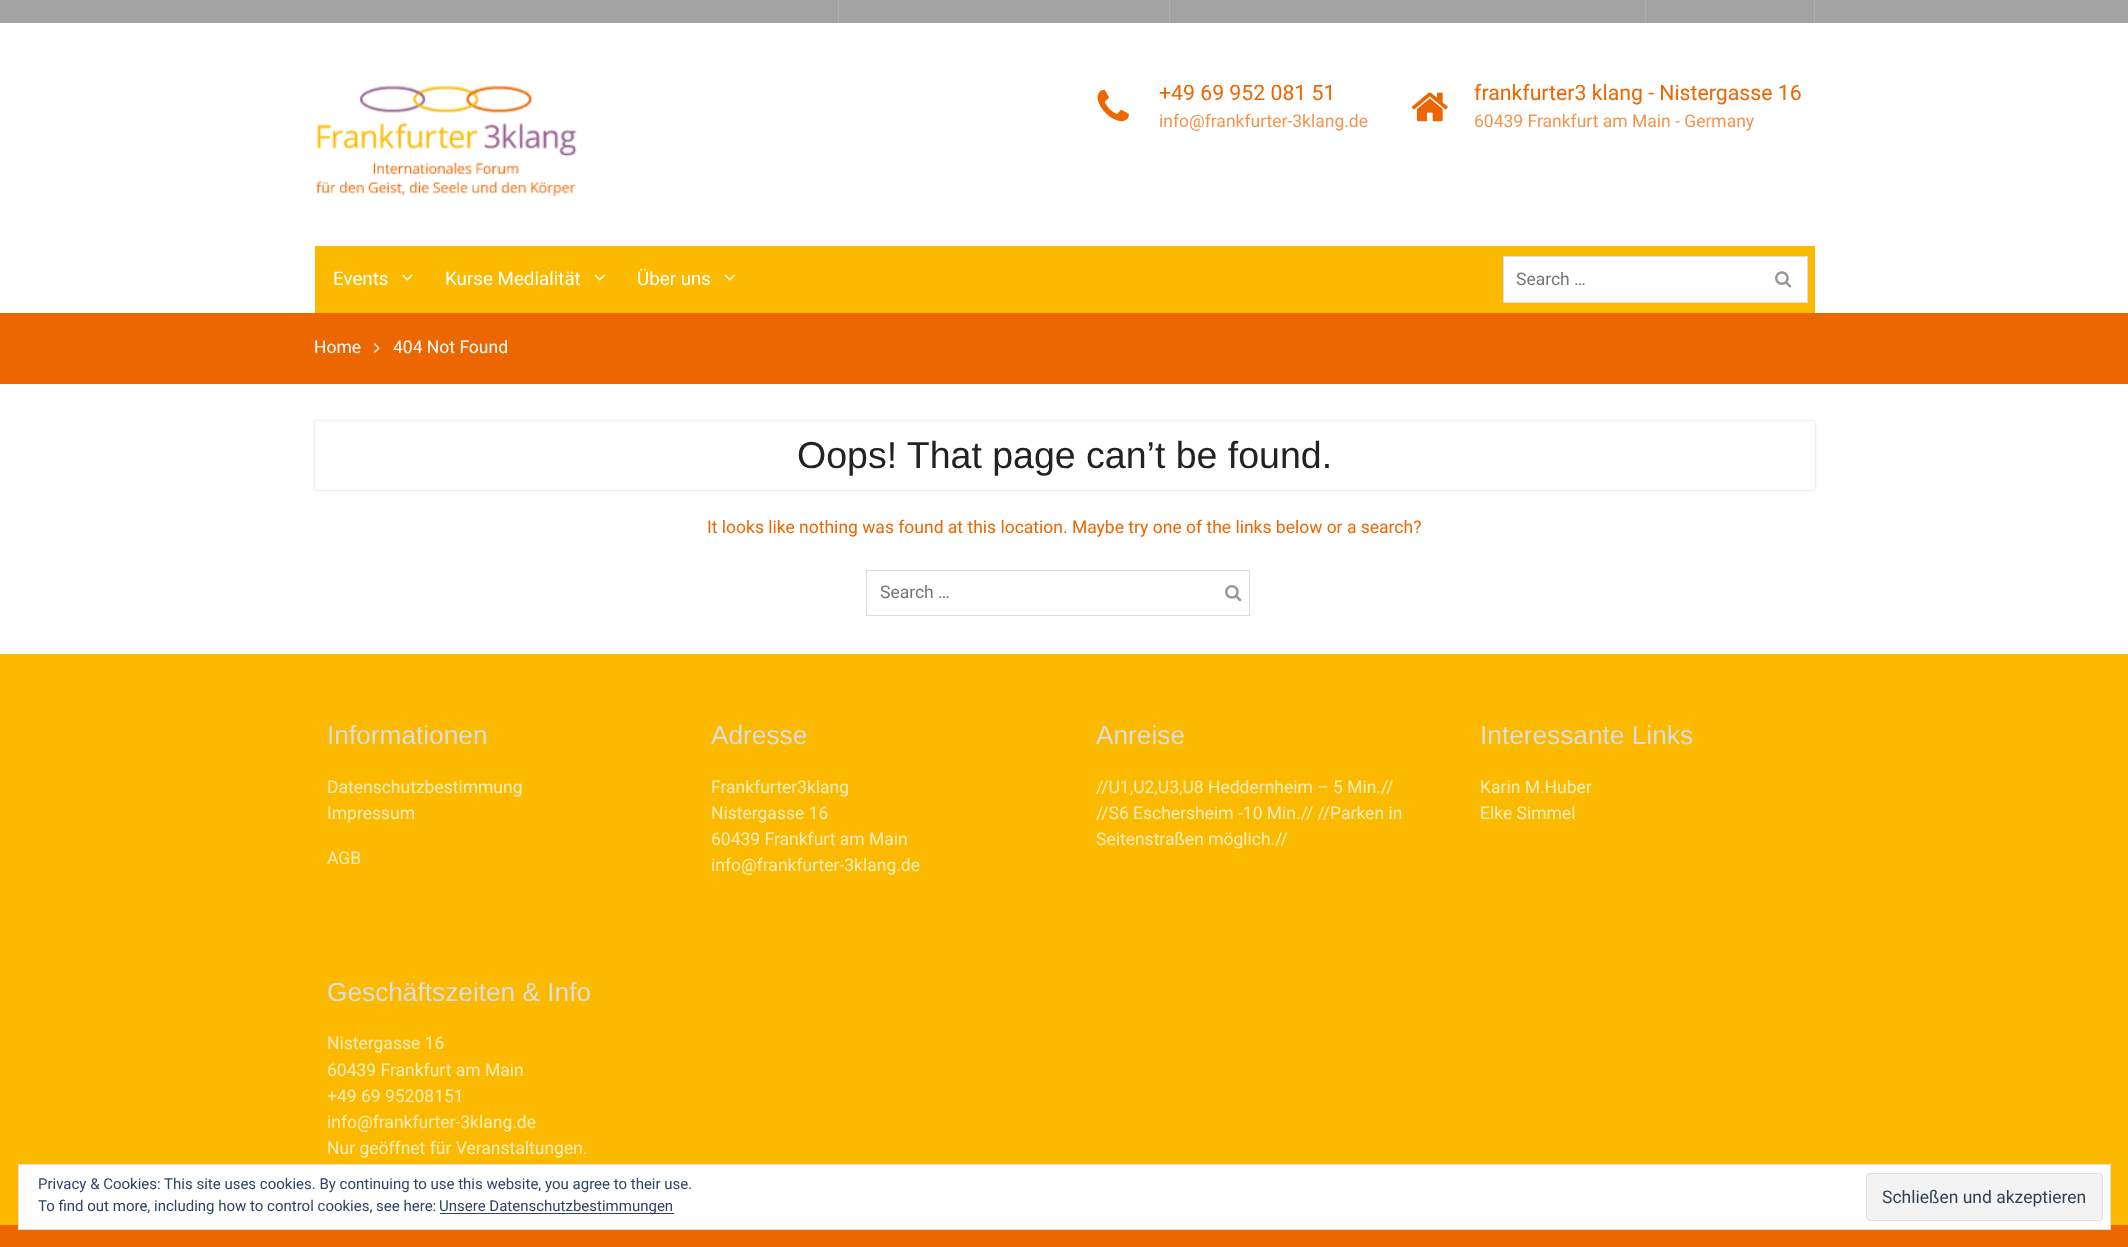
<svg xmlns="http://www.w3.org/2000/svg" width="2128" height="1247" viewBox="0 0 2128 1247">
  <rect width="100%" height="100%" fill="rgb(255,255,255)"/>
  <rect x="0" y="0" width="2128" height="23" fill="rgb(163,163,163)"/>
  <rect x="1169" y="0" width="1" height="23" fill="rgb(177,177,177)"/>
  <rect x="838" y="0" width="1" height="23" fill="rgb(177,177,177)"/>
  <rect x="1645" y="0" width="1" height="23" fill="rgb(177,177,177)"/>
  <rect x="1814" y="0" width="1" height="23" fill="rgb(177,177,177)"/>
  <image x="316" y="85" width="261" height="112" href="pic1.png"/>
  <image x="1097" y="89" width="32" height="33" href="pic2.png"/>
  <text x="1159" y="100" font-family="Roboto" font-size="21.25" fill="rgb(236,102,1)">+49 69 952 081 51</text>
  <text x="1159" y="127" font-family="Roboto" font-size="17.5" fill="rgb(242,148,77)">info@frankfurter-3klang.de</text>
  <image x="1411" y="92" width="37" height="30" href="pic3.png"/>
  <text x="1474" y="100" font-family="Roboto" font-size="21.25" fill="rgb(236,102,1)">frankfurter3 klang - Nistergasse 16</text>
  <text x="1474" y="127" font-family="Roboto" font-size="17.5" fill="rgb(242,148,77)">60439 Frankfurt am Main - Germany</text>
  <rect x="315" y="246" width="1500" height="67" fill="rgb(251,186,0)"/>
  <text x="333" y="285" font-family="Roboto" font-size="18.75" fill="rgb(255,255,255)">Events</text>
  <image x="402" y="274" width="11" height="7" href="pic4.png"/>
  <text x="445" y="285" font-family="Roboto" font-size="18.75" fill="rgb(255,255,255)">Kurse Medialität</text>
  <image x="594" y="274" width="11" height="7" href="pic5.png"/>
  <text x="637" y="285" font-family="Roboto" font-size="18.75" fill="rgb(255,255,255)">Über uns</text>
  <image x="724" y="274" width="11" height="7" href="pic5.png"/>
  <rect x="1503.5" y="256.5" width="304" height="46" fill="rgb(255,255,255)" stroke="rgb(221,221,221)"/>
  <text x="1516" y="285" font-family="Roboto" font-size="17.5" fill="rgb(117,117,117)">Search …</text>
  <image x="1775" y="271" width="17" height="17" href="pic6.png"/>
  <rect x="0" y="313" width="2128" height="71" fill="rgb(236,102,1)"/>
  <text x="314" y="353" font-family="Roboto" font-size="17.5" fill="rgb(255,255,255)">Home</text>
  <image x="373" y="343" width="7" height="10" href="pic7.png"/>
  <text x="393" y="353" font-family="Roboto" font-size="17.5" fill="rgb(255,255,255)">404 Not Found</text>
  <rect x="315" y="421" width="1500" height="69" fill="rgb(207,207,207)" filter="blur(1px)"/>
  <rect x="315" y="421" width="1500" height="69" fill="rgb(255,255,255)"/>
  <text x="797" y="468" font-family="Liberation Sans" font-size="37.5" fill="rgb(34,34,34)">Oops! That page can’t be found.</text>
  <text x="707" y="533" font-family="Roboto" font-size="17.5" fill="rgb(236,102,1)">It looks like nothing was found at this location. Maybe try one of the links below or a search?</text>
  <rect x="866.5" y="570.5" width="383" height="45" fill="none" stroke="rgb(221,221,221)"/>
  <text x="880" y="598" font-family="Roboto" font-size="17.5" fill="rgb(117,117,117)">Search …</text>
  <image x="1225" y="585" width="17" height="17" href="pic8.png"/>
  <rect x="0" y="654" width="2128" height="571" fill="rgb(251,186,0)"/>
  <text x="327" y="744" font-family="Liberation Sans" font-size="26.25" fill="rgb(221,221,221)">Informationen</text>
  <g font-family="Roboto" font-size="17.5" fill="rgb(254,238,191)">
    <text>
      <tspan x="327" y="793">Datenschutzbestimmung</tspan>
      <tspan x="327" y="819">Impressum</tspan>
    </text>
    <text x="327" y="864">AGB</text>
  </g>
  <text x="327" y="1001" font-family="Liberation Sans" font-size="26.25" fill="rgb(221,221,221)">Geschäftszeiten &amp; Info</text>
  <g font-family="Roboto" font-size="17.5" fill="rgb(254,238,191)">
    <text>
      <tspan x="327" y="1049">Nistergasse 16</tspan>
      <tspan x="327" y="1076">60439 Frankfurt am Main</tspan>
      <tspan x="327" y="1102">+49 69 95208151</tspan>
      <tspan x="327" y="1128">info@frankfurter-3klang.de</tspan>
      <tspan x="327" y="1154">Nur geöffnet für Veranstaltungen.</tspan>
    </text>
  </g>
  <text x="711" y="744" font-family="Liberation Sans" font-size="26.25" fill="rgb(221,221,221)">Adresse</text>
  <g font-family="Roboto" font-size="17.5" fill="rgb(254,238,191)">
    <text>
      <tspan x="711" y="793">Frankfurter3klang</tspan>
      <tspan x="711" y="819">Nistergasse 16</tspan>
      <tspan x="711" y="845">60439 Frankfurt am Main</tspan>
      <tspan x="711" y="871">info@frankfurter-3klang.de</tspan>
    </text>
  </g>
  <text x="1096" y="744" font-family="Liberation Sans" font-size="26.25" fill="rgb(221,221,221)">Anreise</text>
  <g font-family="Roboto" font-size="17.5" fill="rgb(254,238,191)">
    <text>
      <tspan x="1096" y="793">//U1,U2,U3,U8 Heddernheim – 5 Min.//</tspan>
      <tspan x="1096" y="819">//S6 Eschersheim -10 Min.// //Parken in</tspan>
      <tspan x="1096" y="845">Seitenstraßen möglich.//</tspan>
    </text>
  </g>
  <text x="1480" y="744" font-family="Liberation Sans" font-size="26.25" fill="rgb(221,221,221)">Interessante Links</text>
  <g font-family="Roboto" font-size="17.5" fill="rgb(254,238,191)">
    <text>
      <tspan x="1480" y="793">Karin M.Huber</tspan>
      <tspan x="1480" y="819">Elke Simmel</tspan>
    </text>
  </g>
  <rect x="0" y="1225" width="2128" height="22" fill="rgb(236,102,1)"/>
  <rect x="18.5" y="1164.5" width="2092" height="65" fill="rgb(255,255,255)" stroke="rgb(222,222,222)"/>
  <g font-family="Roboto" font-size="15" fill="rgb(46,68,103)">
    <text>
      <tspan x="38" y="1189">Privacy &amp; Cookies: This site uses cookies. By continuing to use this website, you agree to their use.</tspan>
      <tspan x="38" y="1211">To find out more, including how to control cookies, see here:</tspan>
    </text>
  </g>
  <rect x="440" y="1213" width="234" height="1" fill="rgb(46,68,103)"/>
  <text x="439" y="1211" font-family="Roboto" font-size="15" fill="rgb(46,68,103)">Unsere Datenschutzbestimmungen</text>
  <rect x="1866.5" y="1173.5" width="236" height="47" rx="3.5" fill="rgb(243,243,243)" stroke="rgb(222,222,222)"/>
  <text x="1882" y="1203" font-family="Roboto" font-size="17.5" fill="rgb(46,68,83)">Schließen und akzeptieren</text>
</svg>
